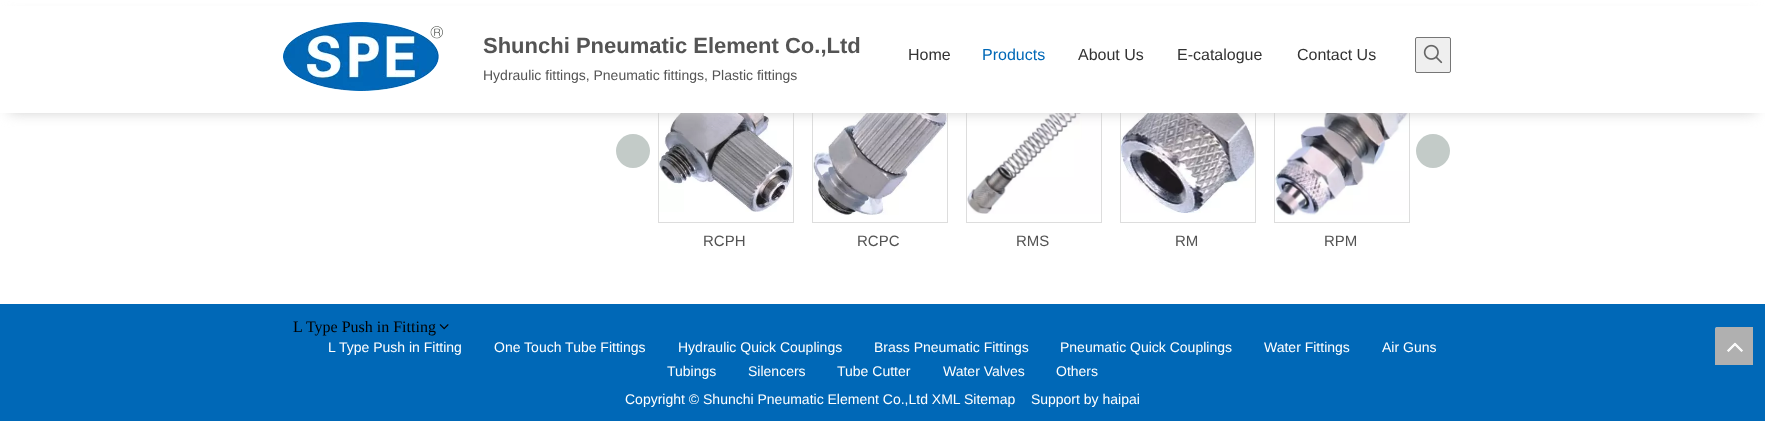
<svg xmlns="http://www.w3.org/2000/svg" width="1765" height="421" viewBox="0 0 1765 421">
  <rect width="100%" height="100%" fill="rgb(255,255,255)"/>
  <rect x="658.5" y="69.5" width="135" height="153" fill="none" stroke="rgb(221,221,221)"/>
  <image x="659" y="113" width="134" height="99" href="pic3.png"/>
  <rect x="812.5" y="69.5" width="135" height="153" fill="none" stroke="rgb(221,221,221)"/>
  <image x="813" y="113" width="134" height="102" href="pic4.png"/>
  <rect x="966.5" y="69.5" width="135" height="153" fill="none" stroke="rgb(221,221,221)"/>
  <image x="967" y="113" width="134" height="101" href="pic5.png"/>
  <rect x="1120.5" y="69.5" width="135" height="153" fill="none" stroke="rgb(221,221,221)"/>
  <image x="1121" y="113" width="134" height="100" href="pic6.png"/>
  <rect x="1274.5" y="69.5" width="135" height="153" fill="none" stroke="rgb(221,221,221)"/>
  <image x="1275" y="113" width="134" height="103" href="pic7.png"/>
  <rect x="9" y="17" width="1747" height="95" fill="rgb(204,204,204)" filter="blur(7px)"/>
  <rect x="0" y="6" width="1765" height="107" fill="rgb(255,255,255)"/>
  <image x="283" y="22" width="160" height="69" href="pic1.png"/>
  <text x="483" y="53" font-family="Liberation Sans" font-size="22" font-weight="bold" fill="rgb(84,84,84)">Shunchi Pneumatic Element Co.,Ltd</text>
  <text x="483" y="80" font-family="Liberation Sans" font-size="14" fill="rgb(84,84,84)">Hydraulic fittings, Pneumatic fittings, Plastic fittings</text>
  <text x="908" y="60" font-family="Liberation Sans" font-size="16" fill="rgb(51,51,51)">Home</text>
  <text x="982" y="60" font-family="Liberation Sans" font-size="16" fill="rgb(0,104,183)">Products</text>
  <g font-family="Liberation Sans" font-size="16" fill="rgb(51,51,51)">
    <text x="1078" y="60">About Us</text>
    <text x="1177" y="60">E-catalogue</text>
    <text x="1297" y="60">Contact Us</text>
  </g>
  <rect x="1415.5" y="37.5" width="35" height="35" rx="1.5" fill="rgb(239,239,239)" stroke="rgb(118,118,118)"/>
  <image x="1423" y="44" width="20" height="20" href="pic2.png"/>
  <circle cx="633" cy="151" r="17" fill="rgb(195,203,200)"/>
  <circle cx="1433" cy="151" r="17" fill="rgb(195,203,200)"/>
  <g font-family="Liberation Sans" font-size="15" fill="rgb(84,84,84)">
    <text x="703" y="246">RCPH</text>
    <text x="857" y="246">RCPC</text>
    <text x="1016" y="246">RMS</text>
    <text x="1175" y="246">RM</text>
    <text x="1324" y="246">RPM</text>
  </g>
  <rect x="0" y="304" width="1765" height="117" fill="rgb(0,104,183)"/>
  <text x="293" y="332" font-family="Liberation Serif" font-size="16" fill="rgb(0,0,0)">L Type Push in Fitting</text>
  <image x="439" y="324" width="10" height="6" href="pic8.png"/>
  <g font-family="Liberation Sans" font-size="14" fill="rgb(255,255,255)">
    <text x="328" y="352">L Type Push in Fitting</text>
    <text x="494" y="352">One Touch Tube Fittings</text>
    <text x="678" y="352">Hydraulic Quick Couplings</text>
    <text x="874" y="352">Brass Pneumatic Fittings</text>
    <text x="1060" y="352">Pneumatic Quick Couplings</text>
    <text x="1264" y="352">Water Fittings</text>
    <text x="1382" y="352">Air Guns</text>
    <text x="667" y="376">Tubings</text>
    <text x="748" y="376">Silencers</text>
    <text x="837" y="376">Tube Cutter</text>
    <text x="943" y="376">Water Valves</text>
    <text x="1056" y="376">Others</text>
    <text x="625" y="404" xml:space="preserve">Copyright © Shunchi Pneumatic Element Co.,Ltd XML Sitemap    Support by haipai</text>
  </g>
  <image x="1715" y="327" width="38" height="38" href="pic9.png"/>
</svg>
